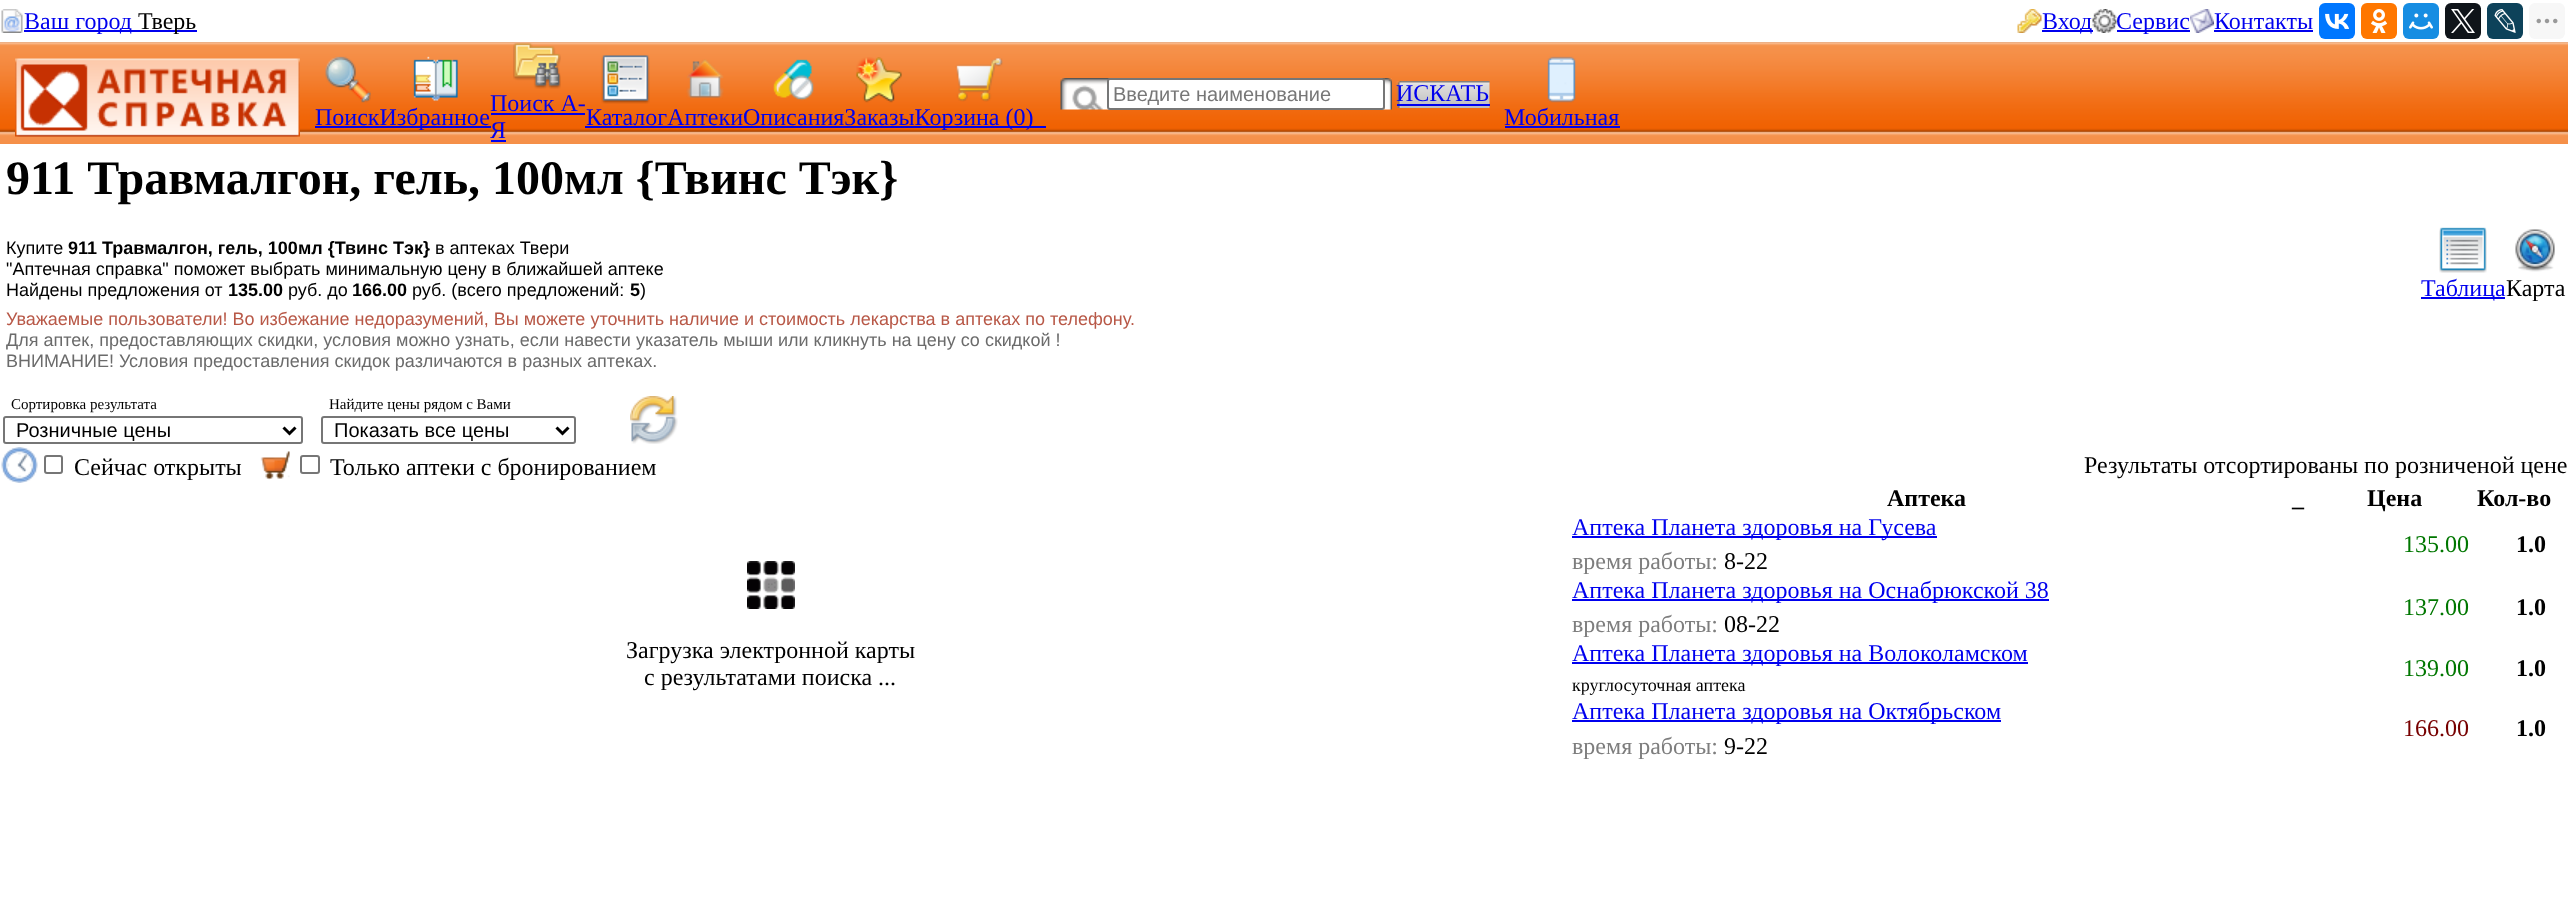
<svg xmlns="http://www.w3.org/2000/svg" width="2568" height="909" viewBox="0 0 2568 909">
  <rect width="100%" height="100%" fill="rgb(255,255,255)"/>
  <image x="1" y="9" width="22" height="24" href="pic1.png"/>
  <rect x="24" y="30" width="173" height="2" fill="rgb(0,0,238)"/>
  <text x="24" y="29" font-family="Liberation Serif" font-size="24" fill="rgb(0,0,238)">Ваш город</text>
  <text x="138" y="29" font-family="Liberation Serif" font-size="24" fill="rgb(0,0,0)">Тверь</text>
  <image x="2017" y="9" width="25" height="24" href="pic2.png"/>
  <rect x="2042" y="30" width="51" height="2" fill="rgb(0,0,238)"/>
  <text x="2042" y="29" font-family="Liberation Serif" font-size="24" fill="rgb(0,0,238)">Вход</text>
  <image x="2092" y="9" width="25" height="24" href="pic3.png"/>
  <rect x="2117" y="30" width="73" height="2" fill="rgb(0,0,238)"/>
  <text x="2116" y="29" font-family="Liberation Serif" font-size="24" fill="rgb(0,0,238)">Сервис</text>
  <image x="2190" y="9" width="24" height="24" href="pic4.png"/>
  <text x="2214" y="29" font-family="Liberation Serif" font-size="24" fill="rgb(0,0,238)">Контакты</text>
  <rect x="2214" y="30" width="99" height="2" fill="rgb(0,0,238)"/>
  <rect x="2319" y="3" width="36" height="36" rx="6" fill="rgb(0,119,255)"/>
  <image x="2325" y="13" width="24" height="16" href="pic5.png"/>
  <rect x="2361" y="3" width="36" height="36" rx="6" fill="rgb(255,119,0)"/>
  <image x="2371" y="9" width="17" height="24" href="pic6.png"/>
  <rect x="2403" y="3" width="36" height="36" rx="6" fill="rgb(22,141,226)"/>
  <image x="2409" y="13" width="24" height="17" href="pic7.png"/>
  <rect x="2445" y="3" width="36" height="36" rx="6" fill="rgb(15,20,25)"/>
  <image x="2451" y="9" width="24" height="24" href="pic8.png"/>
  <rect x="2487" y="3" width="36" height="36" rx="6" fill="rgb(13,66,90)"/>
  <image x="2494" y="9" width="22" height="24" href="pic9.png"/>
  <rect x="2529" y="3" width="36" height="36" rx="6" fill="rgb(247,247,247)"/>
  <image x="2536" y="18" width="22" height="6" href="pic10.png"/>
  <image x="0" y="42" width="2568" height="102" href="pic11.png"/>
  <image x="15" y="58" width="285" height="79" href="pic12.png"/>
  <image x="413" y="56" width="45" height="45" href="pic13.png"/>
  <image x="513" y="43" width="48" height="46" href="pic14.png"/>
  <text x="490" y="111" font-family="Liberation Serif" font-size="24" fill="rgb(0,0,238)">Поиск А-</text>
  <rect x="491" y="113" width="94" height="2" fill="rgb(0,0,238)"/>
  <rect x="315" y="126" width="176" height="2" fill="rgb(0,0,238)"/>
  <text x="490" y="138" font-family="Liberation Serif" font-size="24" fill="rgb(0,0,238)">Я</text>
  <rect x="491" y="140" width="15" height="2" fill="rgb(0,0,238)"/>
  <image x="686" y="59" width="38" height="40" href="pic15.png"/>
  <image x="773" y="59" width="42" height="42" href="pic16.png"/>
  <image x="856" y="57" width="46" height="46" href="pic17.png"/>
  <image x="955" y="57" width="48" height="45" href="pic18.png"/>
  <image x="1060" y="78" width="8" height="32" href="pic19.png"/>
  <image x="1068" y="78" width="39" height="32" href="pic20.png"/>
  <image x="1107" y="78" width="278" height="32" href="pic21.png"/>
  <image x="1384" y="78" width="8" height="32" href="pic22.png"/>
  <rect x="1108" y="79" width="276" height="30" rx="2" fill="rgb(255,255,255)" stroke="rgb(118,118,118)" stroke-width="2"/>
  <text x="1113" y="101" font-family="Liberation Sans" font-size="20" fill="rgb(119,119,119)">Введите наименование</text>
  <image x="1396" y="81" width="94" height="27" href="pic23.png"/>
  <text x="1396" y="101" font-family="Liberation Serif" font-size="24" fill="rgb(0,0,238)">ИСКАТЬ</text>
  <rect x="1397" y="104" width="93" height="2" fill="rgb(0,0,238)"/>
  <image x="325" y="56" width="46" height="47" href="pic24.png"/>
  <text x="315" y="125" font-family="Liberation Serif" font-size="24" fill="rgb(0,0,238)">ПоискИзбранное</text>
  <image x="601" y="55" width="49" height="49" href="pic25.png"/>
  <rect x="585" y="126" width="461" height="2" fill="rgb(0,0,238)"/>
  <text x="586" y="125" font-family="Liberation Serif" font-size="24" fill="rgb(0,0,238)">КаталогАптекиОписанияЗаказыКорзина (0)</text>
  <image x="1547" y="56" width="29" height="47" href="pic26.png"/>
  <text x="1504" y="125" font-family="Liberation Serif" font-size="24" fill="rgb(0,0,238)">Мобильная</text>
  <rect x="1505" y="126" width="115" height="2" fill="rgb(0,0,238)"/>
  <text x="6" y="194" font-family="Liberation Serif" font-size="48" font-weight="bold" fill="rgb(0,0,0)">911 Травмалгон, гель, 100мл {Твинс Тэк}</text>
  <text x="6" y="254" font-family="Liberation Sans" font-size="18" fill="rgb(0,0,0)">Купите</text>
  <text x="68" y="254" font-family="Liberation Sans" font-size="18" font-weight="bold" fill="rgb(0,0,0)">911 Травмалгон, гель, 100мл {Твинс Тэк}</text>
  <g font-family="Liberation Sans" font-size="18" fill="rgb(0,0,0)">
    <text x="435" y="254">в аптеках Твери</text>
    <text>
      <tspan x="6" y="275">"Аптечная справка" поможет выбрать минимальную цену в ближайшей аптеке</tspan>
      <tspan x="6" y="296">Найдены предложения от</tspan>
    </text>
  </g>
  <text x="228" y="296" font-family="Liberation Sans" font-size="18" font-weight="bold" fill="rgb(0,0,0)">135.00</text>
  <text x="288" y="296" font-family="Liberation Sans" font-size="18" fill="rgb(0,0,0)">руб. до</text>
  <text x="352" y="296" font-family="Liberation Sans" font-size="18" font-weight="bold" fill="rgb(0,0,0)">166.00</text>
  <text x="412" y="296" font-family="Liberation Sans" font-size="18" fill="rgb(0,0,0)">руб. (всего предложений:</text>
  <text x="630" y="296" font-family="Liberation Sans" font-size="18" font-weight="bold" fill="rgb(0,0,0)">5</text>
  <text x="640" y="296" font-family="Liberation Sans" font-size="18" fill="rgb(0,0,0)">)</text>
  <text x="6" y="325" font-family="Liberation Sans" font-size="18" fill="rgb(184,88,71)">Уважаемые пользователи! Во избежание недоразумений, Вы можете уточнить наличие и стоимость лекарства в аптеках по телефону.</text>
  <g font-family="Liberation Sans" font-size="18" fill="rgb(107,107,107)">
    <text>
      <tspan x="6" y="346">Для аптек, предоставляющих скидки, условия можно узнать, если навести указатель мыши или кликнуть на цену со скидкой !</tspan>
      <tspan x="6" y="367">ВНИМАНИЕ! Условия предоставления скидок различаются в разных аптеках.</tspan>
    </text>
  </g>
  <image x="2439" y="227" width="48" height="46" href="pic27.png"/>
  <rect x="2421" y="297" width="84" height="2" fill="rgb(0,0,238)"/>
  <text x="2421" y="296" font-family="Liberation Serif" font-size="24" fill="rgb(0,0,238)">Таблица</text>
  <image x="2515" y="229" width="40" height="43" href="pic28.png"/>
  <text x="2506" y="296" font-family="Liberation Serif" font-size="24" fill="rgb(0,0,0)">Карта</text>
  <text x="11" y="409" font-family="Liberation Serif" font-size="15" fill="rgb(0,0,0)">Сортировка результата</text>
  <rect x="4" y="417" width="298" height="26" rx="2" fill="none" stroke="rgb(118,118,118)" stroke-width="2"/>
  <path d="M283.5 427.5L289.5 433.5L295.5 427.5" fill="none" stroke="rgb(0,0,0)" stroke-width="3"/>
  <text x="16" y="437" font-family="Liberation Sans" font-size="20" fill="rgb(0,0,0)">Розничные цены</text>
  <text x="329" y="409" font-family="Liberation Serif" font-size="15" fill="rgb(0,0,0)">Найдите цены рядом с Вами</text>
  <rect x="322" y="417" width="253" height="26" rx="2" fill="none" stroke="rgb(118,118,118)" stroke-width="2"/>
  <path d="M556.5 427.5L562.5 433.5L568.5 427.5" fill="none" stroke="rgb(0,0,0)" stroke-width="3"/>
  <text x="334" y="437" font-family="Liberation Sans" font-size="20" fill="rgb(0,0,0)">Показать все цены</text>
  <image x="630" y="396" width="48" height="48" href="pic29.png"/>
  <image x="1" y="447" width="37" height="36" href="pic30.png"/>
  <rect x="45" y="456" width="17" height="17" rx="2" fill="none" stroke="rgb(118,118,118)" stroke-width="2"/>
  <text x="74" y="475" font-family="Liberation Serif" font-size="24" fill="rgb(0,0,0)">Сейчас открыты</text>
  <image x="260" y="451" width="30" height="29" href="pic31.png"/>
  <rect x="301" y="456" width="18" height="17" rx="2" fill="none" stroke="rgb(118,118,118)" stroke-width="2"/>
  <g font-family="Liberation Serif" font-size="24" fill="rgb(0,0,0)">
    <text x="330" y="475">Только аптеки с бронированием</text>
    <text x="2084" y="473">Результаты отсортированы по розниченой цене</text>
  </g>
  <image x="747" y="561" width="48" height="48" href="pic32.png"/>
  <g font-family="Liberation Serif" font-size="24" fill="rgb(0,0,0)">
    <text x="626" y="658">Загрузка электронной карты</text>
    <text x="644" y="685">с результатами поиска ...</text>
  </g>
  <g font-family="Liberation Serif" font-size="24" font-weight="bold" fill="rgb(0,0,0)">
    <text x="1887" y="506">Аптека</text>
    <text x="2367" y="506">Цена</text>
    <text x="2477" y="506">Кол-во</text>
    <text x="2292" y="506">_</text>
  </g>
  <rect x="1572" y="536" width="365" height="2" fill="rgb(0,0,238)"/>
  <text x="1572" y="535" font-family="Liberation Serif" font-size="24" fill="rgb(0,0,238)">Аптека Планета здоровья на Гусева</text>
  <text x="1572" y="569" font-family="Liberation Serif" font-size="24" fill="rgb(126,126,126)">время работы:</text>
  <text x="1724" y="569" font-family="Liberation Serif" font-size="24" fill="rgb(0,0,0)">8-22</text>
  <text x="2403" y="552" font-family="Liberation Serif" font-size="24" fill="rgb(0,119,0)">135.00</text>
  <text x="2516" y="552" font-family="Liberation Serif" font-size="24" font-weight="bold" fill="rgb(0,0,0)">1.0</text>
  <rect x="1572" y="599" width="477" height="2" fill="rgb(0,0,238)"/>
  <text x="1572" y="598" font-family="Liberation Serif" font-size="24" fill="rgb(0,0,238)">Аптека Планета здоровья на Оснабрюкской 38</text>
  <text x="1572" y="632" font-family="Liberation Serif" font-size="24" fill="rgb(126,126,126)">время работы:</text>
  <text x="1724" y="632" font-family="Liberation Serif" font-size="24" fill="rgb(0,0,0)">08-22</text>
  <text x="2403" y="615" font-family="Liberation Serif" font-size="24" fill="rgb(0,119,0)">137.00</text>
  <text x="2516" y="615" font-family="Liberation Serif" font-size="24" font-weight="bold" fill="rgb(0,0,0)">1.0</text>
  <rect x="1572" y="662" width="456" height="2" fill="rgb(0,0,238)"/>
  <text x="1572" y="661" font-family="Liberation Serif" font-size="24" fill="rgb(0,0,238)">Аптека Планета здоровья на Волоколамском</text>
  <text x="1572" y="691" font-family="Liberation Serif" font-size="18" fill="rgb(0,0,0)">круглосуточная аптека</text>
  <text x="2403" y="676" font-family="Liberation Serif" font-size="24" fill="rgb(0,119,0)">139.00</text>
  <text x="2516" y="676" font-family="Liberation Serif" font-size="24" font-weight="bold" fill="rgb(0,0,0)">1.0</text>
  <rect x="1572" y="720" width="429" height="2" fill="rgb(0,0,238)"/>
  <text x="1572" y="719" font-family="Liberation Serif" font-size="24" fill="rgb(0,0,238)">Аптека Планета здоровья на Октябрьском</text>
  <text x="1572" y="754" font-family="Liberation Serif" font-size="24" fill="rgb(126,126,126)">время работы:</text>
  <text x="1724" y="754" font-family="Liberation Serif" font-size="24" fill="rgb(0,0,0)">9-22</text>
  <text x="2403" y="736" font-family="Liberation Serif" font-size="24" fill="rgb(119,0,0)">166.00</text>
  <text x="2516" y="736" font-family="Liberation Serif" font-size="24" font-weight="bold" fill="rgb(0,0,0)">1.0</text>
</svg>
